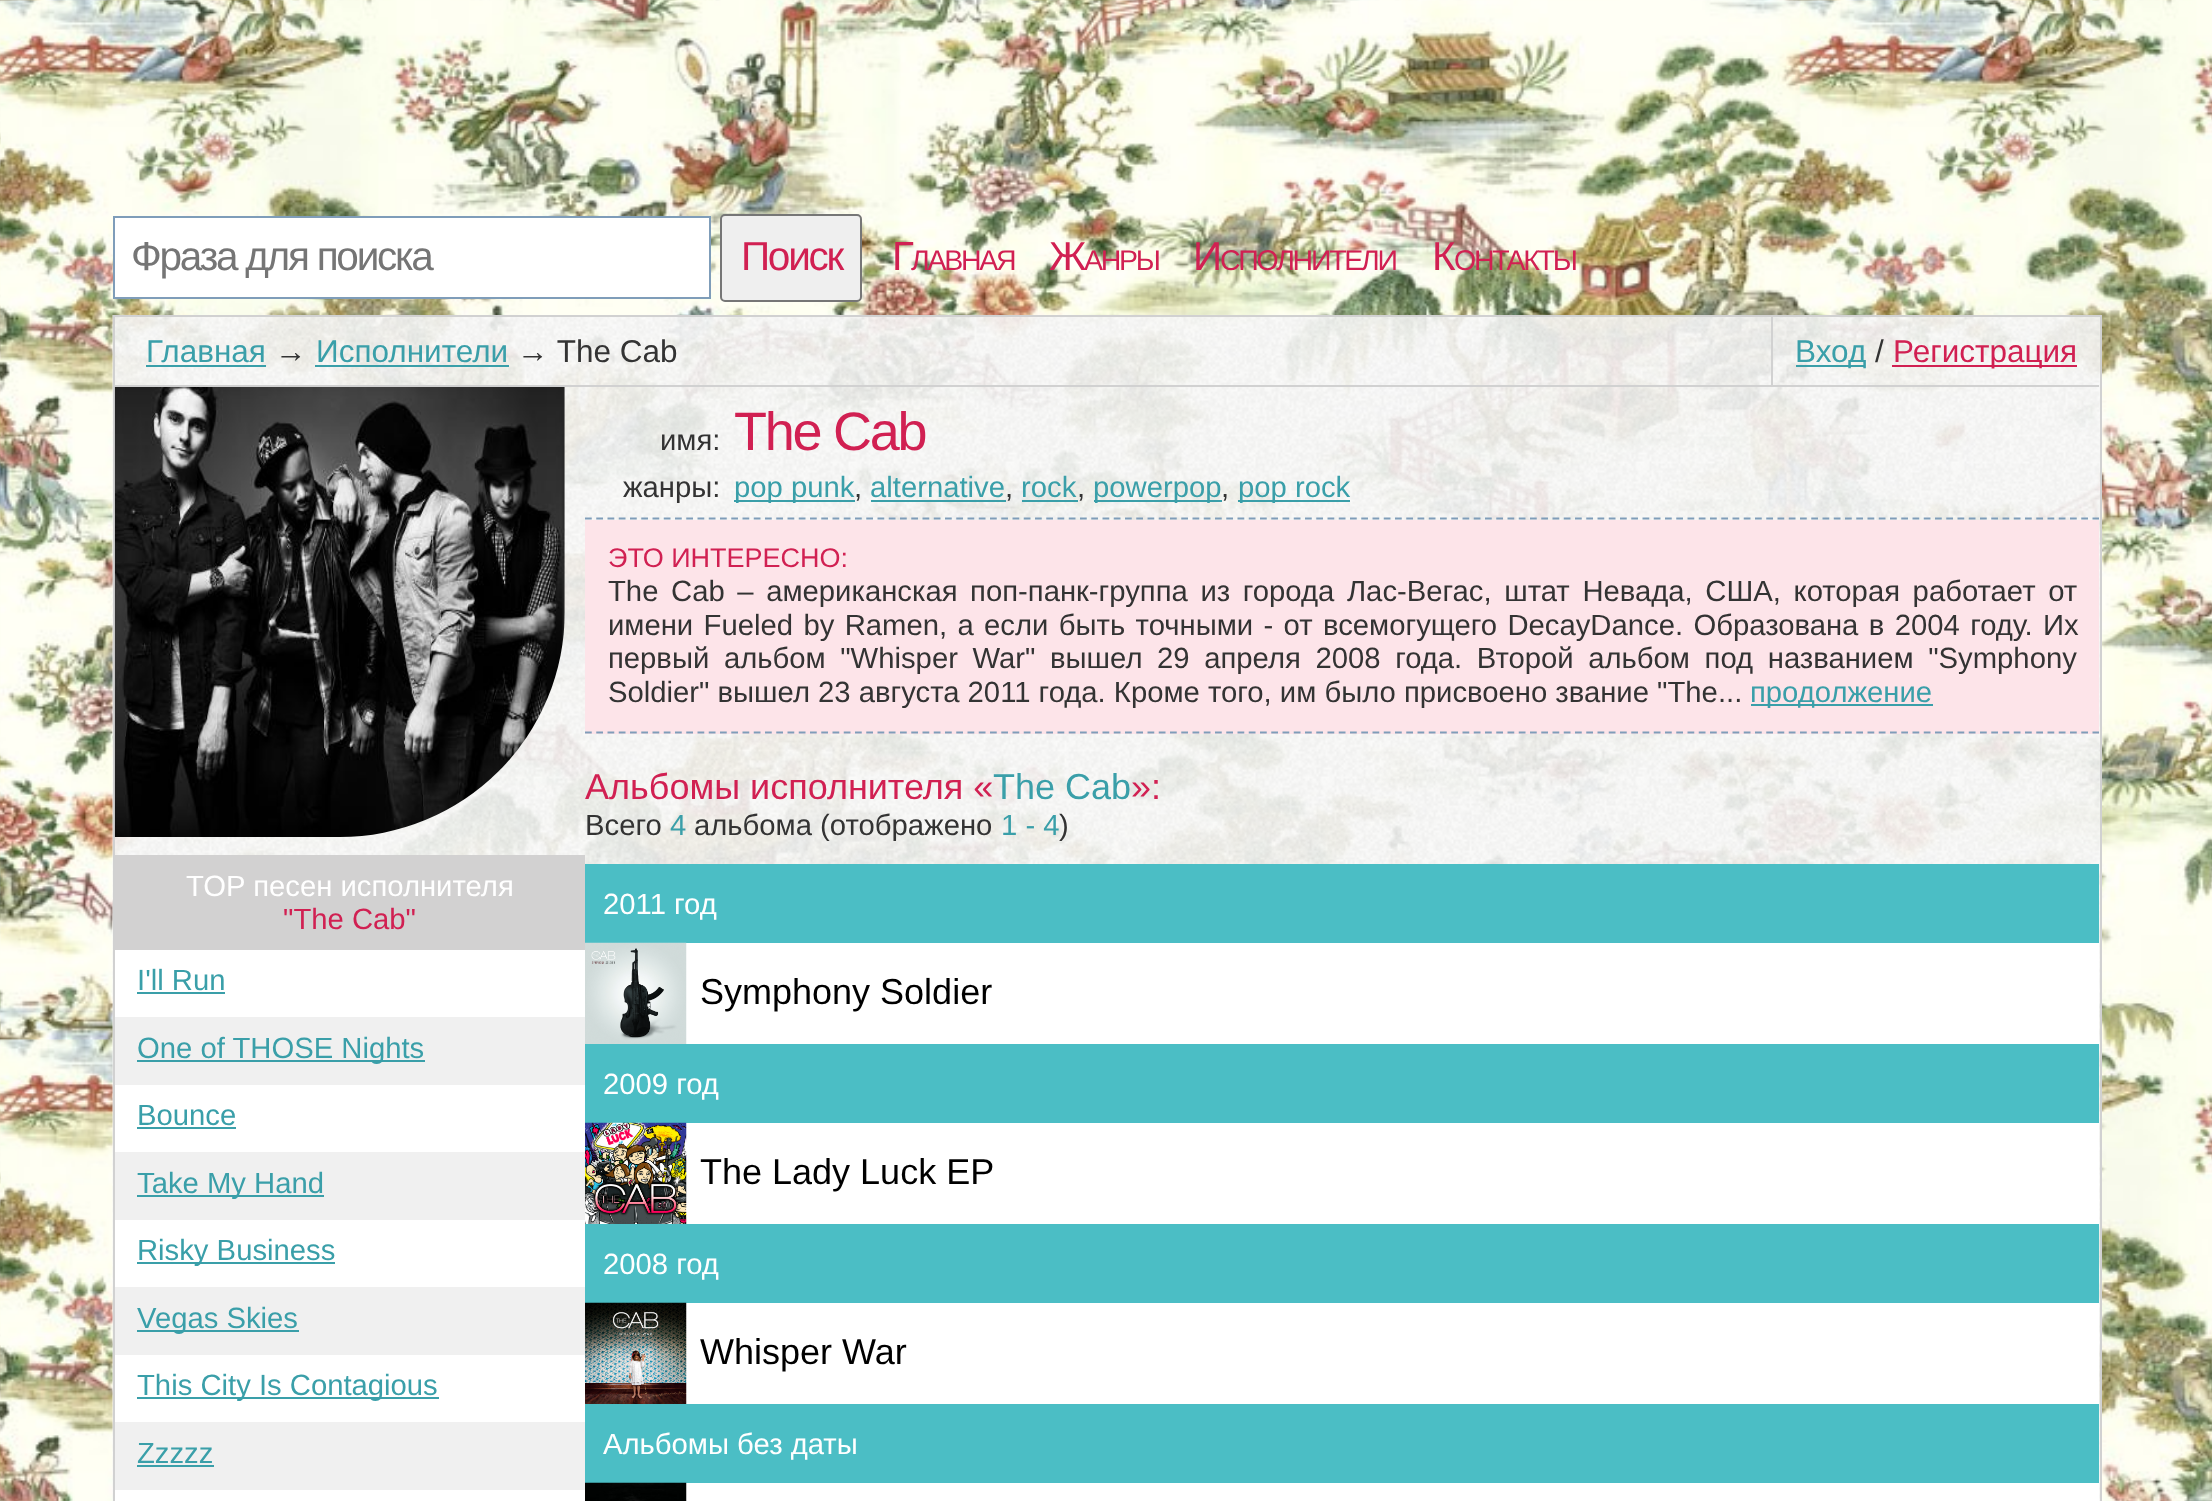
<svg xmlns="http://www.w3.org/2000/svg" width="2212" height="1501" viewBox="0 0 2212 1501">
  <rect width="100%" height="100%" fill="rgb(255,255,255)"/>
  <image x="0" y="0" width="2212" height="1501" href="pic1.png"/>
  <rect x="114" y="217" width="596" height="81" fill="rgb(255,255,255)" stroke="rgb(127,157,185)" stroke-width="2"/>
  <text x="131" y="270" font-family="Liberation Sans" font-size="40.5" letter-spacing="-2.25" fill="rgb(117,117,117)">Фраза для поиска</text>
  <rect x="721" y="215" width="140" height="86" rx="4" fill="rgb(239,239,239)" stroke="rgb(118,118,118)" stroke-width="2"/>
  <g font-family="Liberation Sans" font-size="40.5" letter-spacing="-2.25" fill="rgb(209,32,82)">
    <text x="741" y="270">Поиск</text>
    <text x="892" y="270">Г</text>
  </g>
  <text x="911" y="270" font-family="Liberation Sans" font-size="28.5" letter-spacing="-2.25" fill="rgb(209,32,82)">ЛАВНАЯ</text>
  <text x="1049" y="270" font-family="Liberation Sans" font-size="40.5" letter-spacing="-2.25" fill="rgb(209,32,82)">Ж</text>
  <text x="1084" y="270" font-family="Liberation Sans" font-size="28.5" letter-spacing="-2.25" fill="rgb(209,32,82)">АНРЫ</text>
  <text x="1193" y="270" font-family="Liberation Sans" font-size="40.5" letter-spacing="-2.25" fill="rgb(209,32,82)">И</text>
  <text x="1220" y="270" font-family="Liberation Sans" font-size="28.5" letter-spacing="-2.25" fill="rgb(209,32,82)">СПОЛНИТЕЛИ</text>
  <text x="1432" y="270" font-family="Liberation Sans" font-size="40.5" letter-spacing="-2.25" fill="rgb(209,32,82)">К</text>
  <text x="1454" y="270" font-family="Liberation Sans" font-size="28.5" letter-spacing="-2.25" fill="rgb(209,32,82)">ОНТАКТЫ</text>
  <image x="112" y="315" width="1988" height="1186" href="pic2.png"/>
  <rect x="114" y="316" width="1987" height="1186" fill="none" stroke="rgb(209,209,209)" stroke-width="2"/>
  <rect x="115" y="385" width="1984" height="2" fill="rgb(209,209,209)"/>
  <text x="146" y="362" font-family="Liberation Sans" font-size="31.5" fill="rgb(58,159,169)">Главная</text>
  <rect x="146" y="365" width="120" height="2" fill="rgb(58,159,169)"/>
  <text x="275" y="362" font-family="Liberation Sans" font-size="31.5" fill="rgb(51,51,51)">→</text>
  <text x="316" y="362" font-family="Liberation Sans" font-size="31.5" fill="rgb(58,159,169)">Исполнители</text>
  <rect x="315" y="365" width="194" height="2" fill="rgb(58,159,169)"/>
  <text x="517" y="362" font-family="Liberation Sans" font-size="31.5" fill="rgb(51,51,51)">→ The Cab</text>
  <rect x="1771" y="317" width="2" height="70" fill="rgb(209,209,209)"/>
  <rect x="1796" y="365" width="69" height="2" fill="rgb(58,159,169)"/>
  <text x="1795" y="362" font-family="Liberation Sans" font-size="31.5" fill="rgb(58,159,169)">Вход</text>
  <text x="1875" y="362" font-family="Liberation Sans" font-size="31.5" fill="rgb(51,51,51)">/</text>
  <rect x="1892" y="365" width="185" height="2" fill="rgb(209,32,82)"/>
  <text x="1893" y="362" font-family="Liberation Sans" font-size="31.5" fill="rgb(209,32,82)">Регистрация</text>
  <image x="114" y="387" width="451" height="450" href="pic3.png"/>
  <rect x="115" y="855" width="470" height="95" fill="rgb(210,209,209)"/>
  <text x="186" y="896" font-family="Liberation Sans" font-size="29.25" fill="rgb(255,255,255)">TOP песен исполнителя</text>
  <text x="283" y="929" font-family="Liberation Sans" font-size="29.25" fill="rgb(209,32,82)">"The Cab"</text>
  <rect x="115" y="950" width="470" height="551" fill="rgb(255,255,255)"/>
  <text x="137" y="990" font-family="Liberation Sans" font-size="29.25" fill="rgb(58,159,169)">I'll Run</text>
  <rect x="137" y="992" width="88" height="2" fill="rgb(58,159,169)"/>
  <rect x="115" y="1017" width="470" height="68" fill="rgb(240,240,240)"/>
  <rect x="137" y="1060" width="288" height="2" fill="rgb(58,159,169)"/>
  <g font-family="Liberation Sans" font-size="29.25" fill="rgb(58,159,169)">
    <text x="137" y="1058">One of THOSE Nights</text>
    <text x="137" y="1125">Bounce</text>
  </g>
  <rect x="137" y="1127" width="99" height="2" fill="rgb(58,159,169)"/>
  <rect x="115" y="1152" width="470" height="68" fill="rgb(240,240,240)"/>
  <rect x="137" y="1195" width="187" height="2" fill="rgb(58,159,169)"/>
  <text x="137" y="1193" font-family="Liberation Sans" font-size="29.25" fill="rgb(58,159,169)">Take My Hand</text>
  <rect x="137" y="1262" width="198" height="2" fill="rgb(58,159,169)"/>
  <text x="137" y="1260" font-family="Liberation Sans" font-size="29.25" fill="rgb(58,159,169)">Risky Business</text>
  <rect x="115" y="1287" width="470" height="68" fill="rgb(240,240,240)"/>
  <rect x="137" y="1330" width="162" height="2" fill="rgb(58,159,169)"/>
  <text x="137" y="1328" font-family="Liberation Sans" font-size="29.25" fill="rgb(58,159,169)">Vegas Skies</text>
  <rect x="137" y="1397" width="302" height="2" fill="rgb(58,159,169)"/>
  <text x="137" y="1395" font-family="Liberation Sans" font-size="29.25" fill="rgb(58,159,169)">This City Is Contagious</text>
  <rect x="115" y="1422" width="470" height="68" fill="rgb(240,240,240)"/>
  <text x="137" y="1463" font-family="Liberation Sans" font-size="29.25" fill="rgb(58,159,169)">Zzzzz</text>
  <rect x="137" y="1465" width="77" height="2" fill="rgb(58,159,169)"/>
  <path d="M585 518.5H2099" fill="none" stroke="rgb(127,157,185)" stroke-width="2.2" stroke-dasharray="6.75 4.5"/>
  <text x="660" y="450" font-family="Liberation Sans" font-size="29.25" fill="rgb(51,51,51)">имя:</text>
  <text x="734" y="450" font-family="Liberation Sans" font-size="54" letter-spacing="-2.25" fill="rgb(209,32,82)">The Cab</text>
  <text x="623" y="497" font-family="Liberation Sans" font-size="29.25" fill="rgb(51,51,51)">жанры:</text>
  <rect x="734" y="500" width="121" height="2" fill="rgb(58,159,169)"/>
  <text x="734" y="497" font-family="Liberation Sans" font-size="29.25" fill="rgb(58,159,169)">pop punk</text>
  <text x="854" y="497" font-family="Liberation Sans" font-size="29.25" fill="rgb(51,51,51)">,</text>
  <text x="870" y="497" font-family="Liberation Sans" font-size="29.25" fill="rgb(58,159,169)">alternative</text>
  <rect x="871" y="500" width="135" height="2" fill="rgb(58,159,169)"/>
  <text x="1005" y="497" font-family="Liberation Sans" font-size="29.25" fill="rgb(51,51,51)">,</text>
  <text x="1021" y="497" font-family="Liberation Sans" font-size="29.25" fill="rgb(58,159,169)">rock</text>
  <rect x="1022" y="500" width="56" height="2" fill="rgb(58,159,169)"/>
  <text x="1077" y="497" font-family="Liberation Sans" font-size="29.25" fill="rgb(51,51,51)">,</text>
  <rect x="1094" y="500" width="128" height="2" fill="rgb(58,159,169)"/>
  <text x="1093" y="497" font-family="Liberation Sans" font-size="29.25" fill="rgb(58,159,169)">powerpop</text>
  <text x="1221" y="497" font-family="Liberation Sans" font-size="29.25" fill="rgb(51,51,51)">,</text>
  <rect x="1238" y="500" width="112" height="2" fill="rgb(58,159,169)"/>
  <text x="1238" y="497" font-family="Liberation Sans" font-size="29.25" fill="rgb(58,159,169)">pop rock</text>
  <rect x="585" y="520" width="1514" height="214" fill="rgb(253,228,233)"/>
  <path d="M585 732.5H2099" fill="none" stroke="rgb(127,157,185)" stroke-width="2.2" stroke-dasharray="6.75 4.5"/>
  <text x="608" y="567" font-family="Liberation Sans" font-size="27" fill="rgb(209,32,82)">ЭТО ИНТЕРЕСНО:</text>
  <g font-family="Liberation Sans" font-size="29.25" fill="rgb(51,51,51)">
    <text>
      <tspan x="608" y="601" word-spacing="4.5">The Cab – американская поп-панк-группа из города Лас-Вегас, штат Невада, США, которая работает от</tspan>
      <tspan x="608" y="635" word-spacing="2.25">имени Fueled by Ramen, а если быть точными - от всемогущего DecayDance. Образована в 2004 году. Их</tspan>
      <tspan x="608" y="668" word-spacing="6.5">первый альбом "Whisper War" вышел 29 апреля 2008 года. Второй альбом под названием "Symphony</tspan>
      <tspan x="608" y="702">Soldier" вышел 23 августа 2011 года. Кроме того, им было присвоено звание "The...</tspan>
    </text>
  </g>
  <rect x="1751" y="704" width="182" height="2" fill="rgb(58,159,169)"/>
  <text x="1750" y="702" font-family="Liberation Sans" font-size="29.25" fill="rgb(58,159,169)">продолжение</text>
  <text x="585" y="799" font-family="Liberation Sans" font-size="36" fill="rgb(209,32,82)">Альбомы исполнителя «</text>
  <text x="993" y="799" font-family="Liberation Sans" font-size="36" fill="rgb(58,159,169)">The Cab</text>
  <text x="1131" y="799" font-family="Liberation Sans" font-size="36" fill="rgb(209,32,82)">»:</text>
  <text x="585" y="835" font-family="Liberation Sans" font-size="29.25" fill="rgb(51,51,51)">Всего</text>
  <text x="670" y="835" font-family="Liberation Sans" font-size="29.25" fill="rgb(58,159,169)">4</text>
  <text x="694" y="835" font-family="Liberation Sans" font-size="29.25" fill="rgb(51,51,51)">альбома (отображено</text>
  <text x="1001" y="835" font-family="Liberation Sans" font-size="29.25" fill="rgb(58,159,169)">1 - 4</text>
  <text x="1059" y="835" font-family="Liberation Sans" font-size="29.25" fill="rgb(51,51,51)">)</text>
  <rect x="686" y="943" width="1413" height="558" fill="rgb(255,255,255)"/>
  <rect x="585" y="864" width="1514" height="79" fill="rgb(75,190,197)"/>
  <text x="603" y="914" font-family="Liberation Sans" font-size="29.25" fill="rgb(255,255,255)">2011 год</text>
  <image x="585" y="942" width="102" height="102" href="pic4.png"/>
  <text x="700" y="1004" font-family="Liberation Sans" font-size="36" fill="rgb(0,0,0)">Symphony Soldier</text>
  <rect x="585" y="1044" width="1514" height="79" fill="rgb(75,190,197)"/>
  <text x="603" y="1094" font-family="Liberation Sans" font-size="29.25" fill="rgb(255,255,255)">2009 год</text>
  <image x="585" y="1122" width="102" height="102" href="pic5.png"/>
  <text x="700" y="1184" font-family="Liberation Sans" font-size="36" fill="rgb(0,0,0)">The Lady Luck EP</text>
  <rect x="585" y="1224" width="1514" height="79" fill="rgb(75,190,197)"/>
  <text x="603" y="1274" font-family="Liberation Sans" font-size="29.25" fill="rgb(255,255,255)">2008 год</text>
  <image x="585" y="1302" width="102" height="102" href="pic6.png"/>
  <text x="700" y="1364" font-family="Liberation Sans" font-size="36" fill="rgb(0,0,0)">Whisper War</text>
  <rect x="585" y="1404" width="1514" height="79" fill="rgb(75,190,197)"/>
  <text x="603" y="1454" font-family="Liberation Sans" font-size="29.25" fill="rgb(255,255,255)">Альбомы без даты</text>
  <image x="585" y="1482" width="102" height="19" href="pic7.png"/>
</svg>
